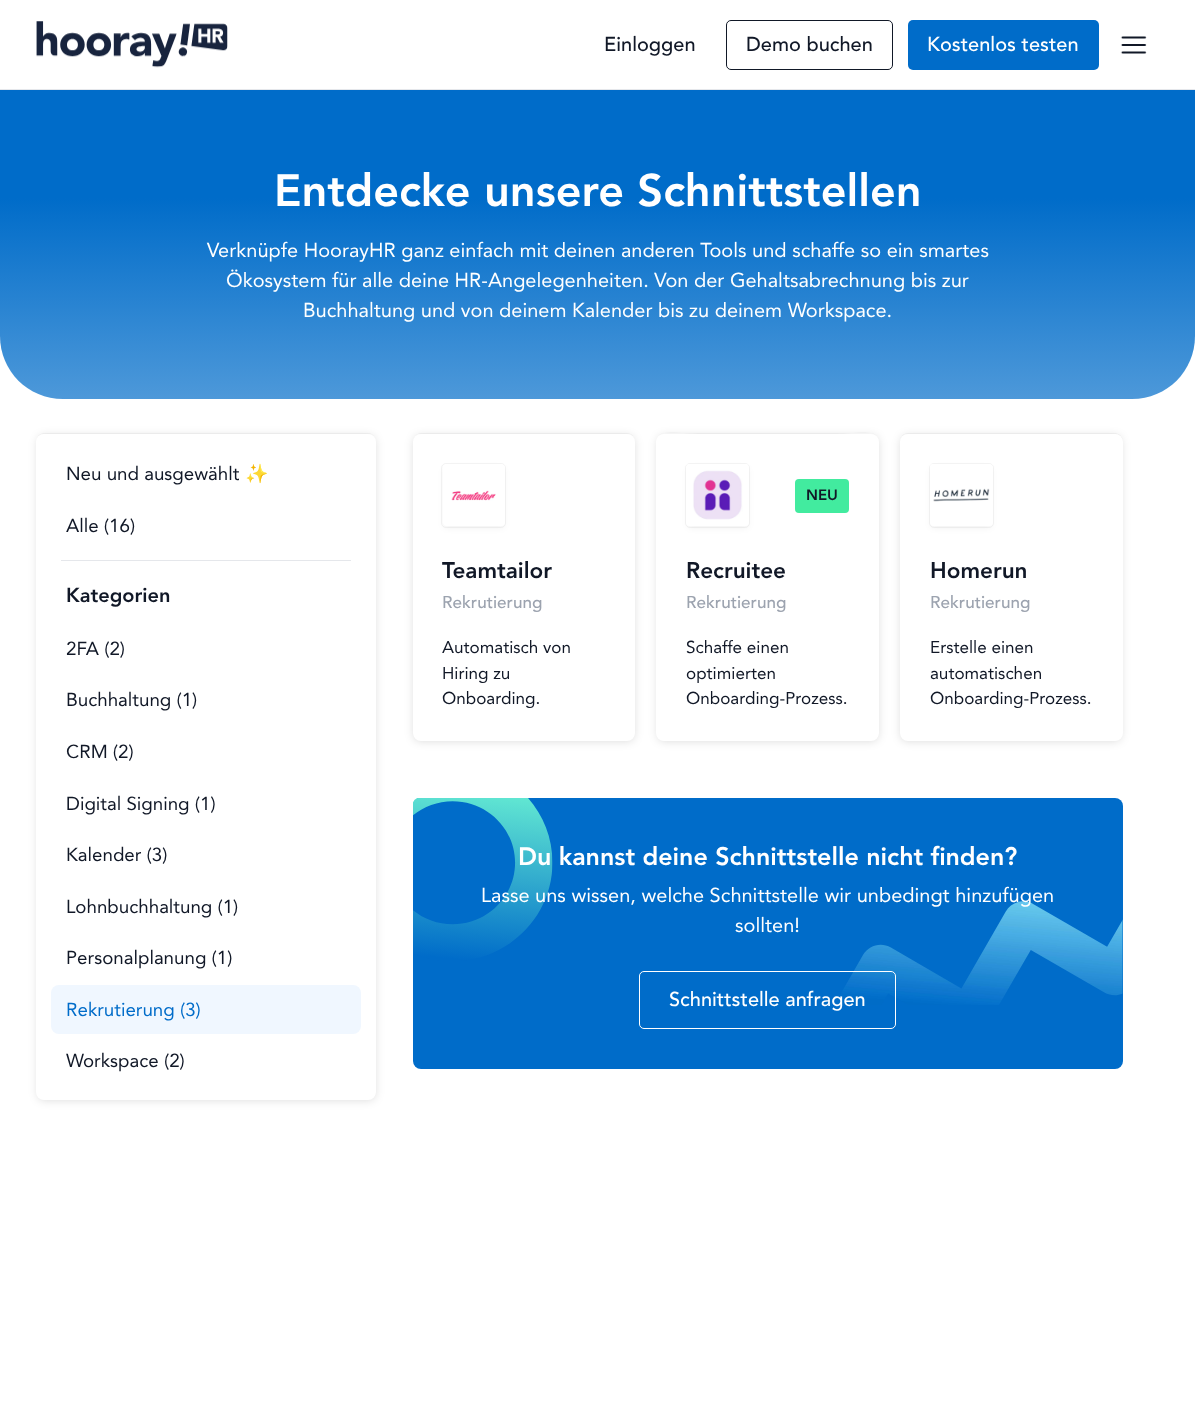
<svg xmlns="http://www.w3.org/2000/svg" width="1195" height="1418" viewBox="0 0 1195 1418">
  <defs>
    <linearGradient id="g1" gradientUnits="userSpaceOnUse" x1="598" y1="90" x2="598" y2="862"><stop offset="0.14" stop-color="rgb(0,108,201)"/><stop offset="1" stop-color="rgb(255,255,255)"/></linearGradient>
  </defs>
  <rect width="100%" height="100%" fill="rgb(255,255,255)"/>
  <rect x="0" y="89" width="1195" height="1" fill="rgb(229,231,235)"/>
  <image x="36" y="21" width="192" height="47" href="pic1.png"/>
  <text x="604" y="51" font-family="'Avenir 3'" font-size="20" fill="rgb(17,24,39)">Einloggen</text>
  <rect x="726.5" y="20.5" width="166" height="49" rx="4.5" fill="none" stroke="rgb(17,24,39)"/>
  <text x="746" y="51" font-family="'Avenir 3'" font-size="20" fill="rgb(17,24,39)">Demo buchen</text>
  <rect x="908" y="20" width="191" height="50" rx="5" fill="rgb(0,108,201)"/>
  <text x="927" y="51" font-family="'Avenir 3'" font-size="20" fill="rgb(255,255,255)">Kostenlos testen</text>
  <image x="1120" y="36" width="27" height="18" href="pic2.png"/>
  <path d="M0 90H1195V336C1195 371 1167 399 1132 399H63C28 399 0 371 0 336Z" fill="url(#g1)"/>
  <text x="274" y="206" font-family="Avenir" font-size="45" fill="rgb(255,255,255)">Entdecke unsere Schnittstellen</text>
  <g font-family="'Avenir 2'" font-size="20" fill="rgb(255,255,255)">
    <text x="207" y="257">Verknüpfe HoorayHR ganz einfach mit deinen anderen Tools und schaffe so ein smartes</text>
    <text x="226" y="287">Ökosystem für alle deine HR-Angelegenheiten. Von der Gehaltsabrechnung bis zur</text>
    <text x="303" y="317">Buchhaltung und von deinem Kalender bis zu deinem Workspace.</text>
  </g>
  <path d="M44 433C40 433 36 437 36 441V1093V441C36 437 40 434 44 434H369C371 434 374 435 375 437C374 435 371 433 368 433Z" fill="rgb(246,246,246)"/>
  <rect x="38" y="436" width="337" height="664" rx="6" fill="rgba(0,0,0,0.15)" filter="blur(5px)"/>
  <rect x="36" y="434" width="340" height="666" rx="8" fill="rgb(255,255,255)"/>
  <text x="66" y="480" font-family="'Avenir 2'" font-size="18.75" fill="rgb(17,24,39)">Neu und ausgewählt</text>
  <text x="245" y="480" font-family="Noto Color Emoji" font-size="18.75" fill="rgb(17,24,39)">✨</text>
  <text x="66" y="532" font-family="'Avenir 2'" font-size="18.75" fill="rgb(17,24,39)">Alle (16)</text>
  <rect x="61" y="560" width="290" height="1" fill="rgb(229,231,235)"/>
  <text x="66" y="602" font-family="Avenir" font-size="20" fill="rgb(17,24,39)">Kategorien</text>
  <g font-family="'Avenir 2'" font-size="18.75" fill="rgb(17,24,39)">
    <text x="66" y="655">2FA (2)</text>
    <text x="66" y="706">Buchhaltung (1)</text>
    <text x="66" y="758">CRM (2)</text>
    <text x="66" y="810">Digital Signing (1)</text>
    <text x="66" y="861">Kalender (3)</text>
    <text x="66" y="913">Lohnbuchhaltung (1)</text>
    <text x="66" y="964">Personalplanung (1)</text>
  </g>
  <rect x="51" y="985" width="310" height="49" rx="8" fill="rgb(240,247,255)"/>
  <text x="66" y="1016" font-family="'Avenir 2'" font-size="18.75" fill="rgb(0,108,201)">Rekrutierung (3)</text>
  <text x="66" y="1067" font-family="'Avenir 2'" font-size="18.75" fill="rgb(17,24,39)">Workspace (2)</text>
  <path d="M421 433C419 433 417 434 415 435C417 434 418 434 420 434H628C632 434 635 437 635 441C635 437 632 433 627 433Z" fill="rgb(246,246,246)"/>
  <rect x="414" y="436" width="220" height="305" rx="6" fill="rgba(0,0,0,0.15)" filter="blur(5px)"/>
  <rect x="413" y="434" width="222" height="307" rx="8" fill="rgb(255,255,255)"/>
  <rect x="441.5" y="463.5" width="64" height="64" rx="4.5" fill="none" stroke="rgb(244,244,244)"/>
  <rect x="444" y="468" width="60" height="60" rx="2.5" fill="rgba(0,0,0,0.05)" filter="blur(3px)"/>
  <rect x="443" y="464" width="62" height="62" rx="4" fill="rgb(255,255,255)"/>
  <image x="451" y="490" width="45" height="11" href="pic3.png"/>
  <text x="442" y="578" font-family="Avenir" font-size="22.5" fill="rgb(17,24,39)">Teamtailor</text>
  <text x="442" y="608" font-family="'Avenir 3'" font-size="17.1" fill="rgb(156,163,175)">Rekrutierung</text>
  <g font-family="'Avenir 2'" font-size="17.1" fill="rgb(17,24,39)">
    <text>
      <tspan x="442" y="653">Automatisch von</tspan>
      <tspan x="442" y="679">Hiring zu</tspan>
      <tspan x="442" y="704">Onboarding.</tspan>
    </text>
  </g>
  <path d="M664 433C660 433 656 437 656 441V734V441C656 428 683 434 698 434H837C852 434 879 428 879 441V734V441C879 437 875 433 871 433Z" fill="rgb(246,246,246)"/>
  <rect x="658" y="436" width="220" height="305" rx="6" fill="rgba(0,0,0,0.15)" filter="blur(5px)"/>
  <rect x="656" y="434" width="223" height="307" rx="8" fill="rgb(255,255,255)"/>
  <rect x="685.5" y="463.5" width="64" height="64" rx="4.5" fill="none" stroke="rgb(244,244,244)"/>
  <rect x="688" y="468" width="60" height="60" rx="2.5" fill="rgba(0,0,0,0.05)" filter="blur(3px)"/>
  <rect x="686" y="464" width="63" height="62" rx="4" fill="rgb(255,255,255)"/>
  <image x="687" y="464" width="61" height="56" href="pic4.png"/>
  <rect x="795" y="479" width="54" height="34" rx="4" fill="rgb(66,235,159)"/>
  <text x="806" y="500" font-family="Avenir" font-size="15" fill="rgb(17,24,39)">NEU</text>
  <text x="686" y="578" font-family="Avenir" font-size="22.5" fill="rgb(17,24,39)">Recruitee</text>
  <text x="686" y="608" font-family="'Avenir 3'" font-size="17.1" fill="rgb(156,163,175)">Rekrutierung</text>
  <g font-family="'Avenir 2'" font-size="17.1" fill="rgb(17,24,39)">
    <text>
      <tspan x="686" y="653">Schaffe einen</tspan>
      <tspan x="686" y="679">optimierten</tspan>
      <tspan x="686" y="704">Onboarding-Prozess.</tspan>
    </text>
  </g>
  <path d="M908 433C903 433 900 437 900 441C900 437 903 434 908 434H1115C1119 434 1122 437 1122 441V735L1123 732V441C1123 437 1119 433 1115 433Z" fill="rgb(246,246,246)"/>
  <rect x="901" y="436" width="220" height="305" rx="6" fill="rgba(0,0,0,0.15)" filter="blur(5px)"/>
  <rect x="900" y="434" width="223" height="307" rx="8" fill="rgb(255,255,255)"/>
  <rect x="929.5" y="463.5" width="64" height="64" rx="4.5" fill="none" stroke="rgb(244,244,244)"/>
  <rect x="931" y="468" width="60" height="60" rx="2.5" fill="rgba(0,0,0,0.05)" filter="blur(3px)"/>
  <rect x="930" y="464" width="63" height="62" rx="4" fill="rgb(255,255,255)"/>
  <image x="930" y="464" width="60" height="38" href="pic5.png"/>
  <text x="930" y="578" font-family="Avenir" font-size="22.5" fill="rgb(17,24,39)">Homerun</text>
  <text x="930" y="608" font-family="'Avenir 3'" font-size="17.1" fill="rgb(156,163,175)">Rekrutierung</text>
  <g font-family="'Avenir 2'" font-size="17.1" fill="rgb(17,24,39)">
    <text>
      <tspan x="930" y="653">Erstelle einen</tspan>
      <tspan x="930" y="679">automatischen</tspan>
      <tspan x="930" y="704">Onboarding-Prozess.</tspan>
    </text>
  </g>
  <rect x="413" y="798" width="710" height="271" rx="8" fill="rgb(0,108,201)"/>
  <image x="413" y="798" width="710" height="207" href="pic6.png"/>
  <text x="518" y="865" font-family="Avenir" font-size="25" fill="rgb(255,255,255)">Du kannst deine Schnittstelle nicht finden?</text>
  <g font-family="'Avenir 2'" font-size="20" fill="rgb(255,255,255)">
    <text x="481" y="902">Lasse uns wissen, welche Schnittstelle wir unbedingt hinzufügen</text>
    <text x="735" y="932">sollten!</text>
  </g>
  <rect x="639.5" y="971.5" width="256" height="57" rx="4.5" fill="none" stroke="rgb(255,255,255)"/>
  <text x="669" y="1006" font-family="'Avenir 3'" font-size="20" fill="rgb(255,255,255)">Schnittstelle anfragen</text>
</svg>
